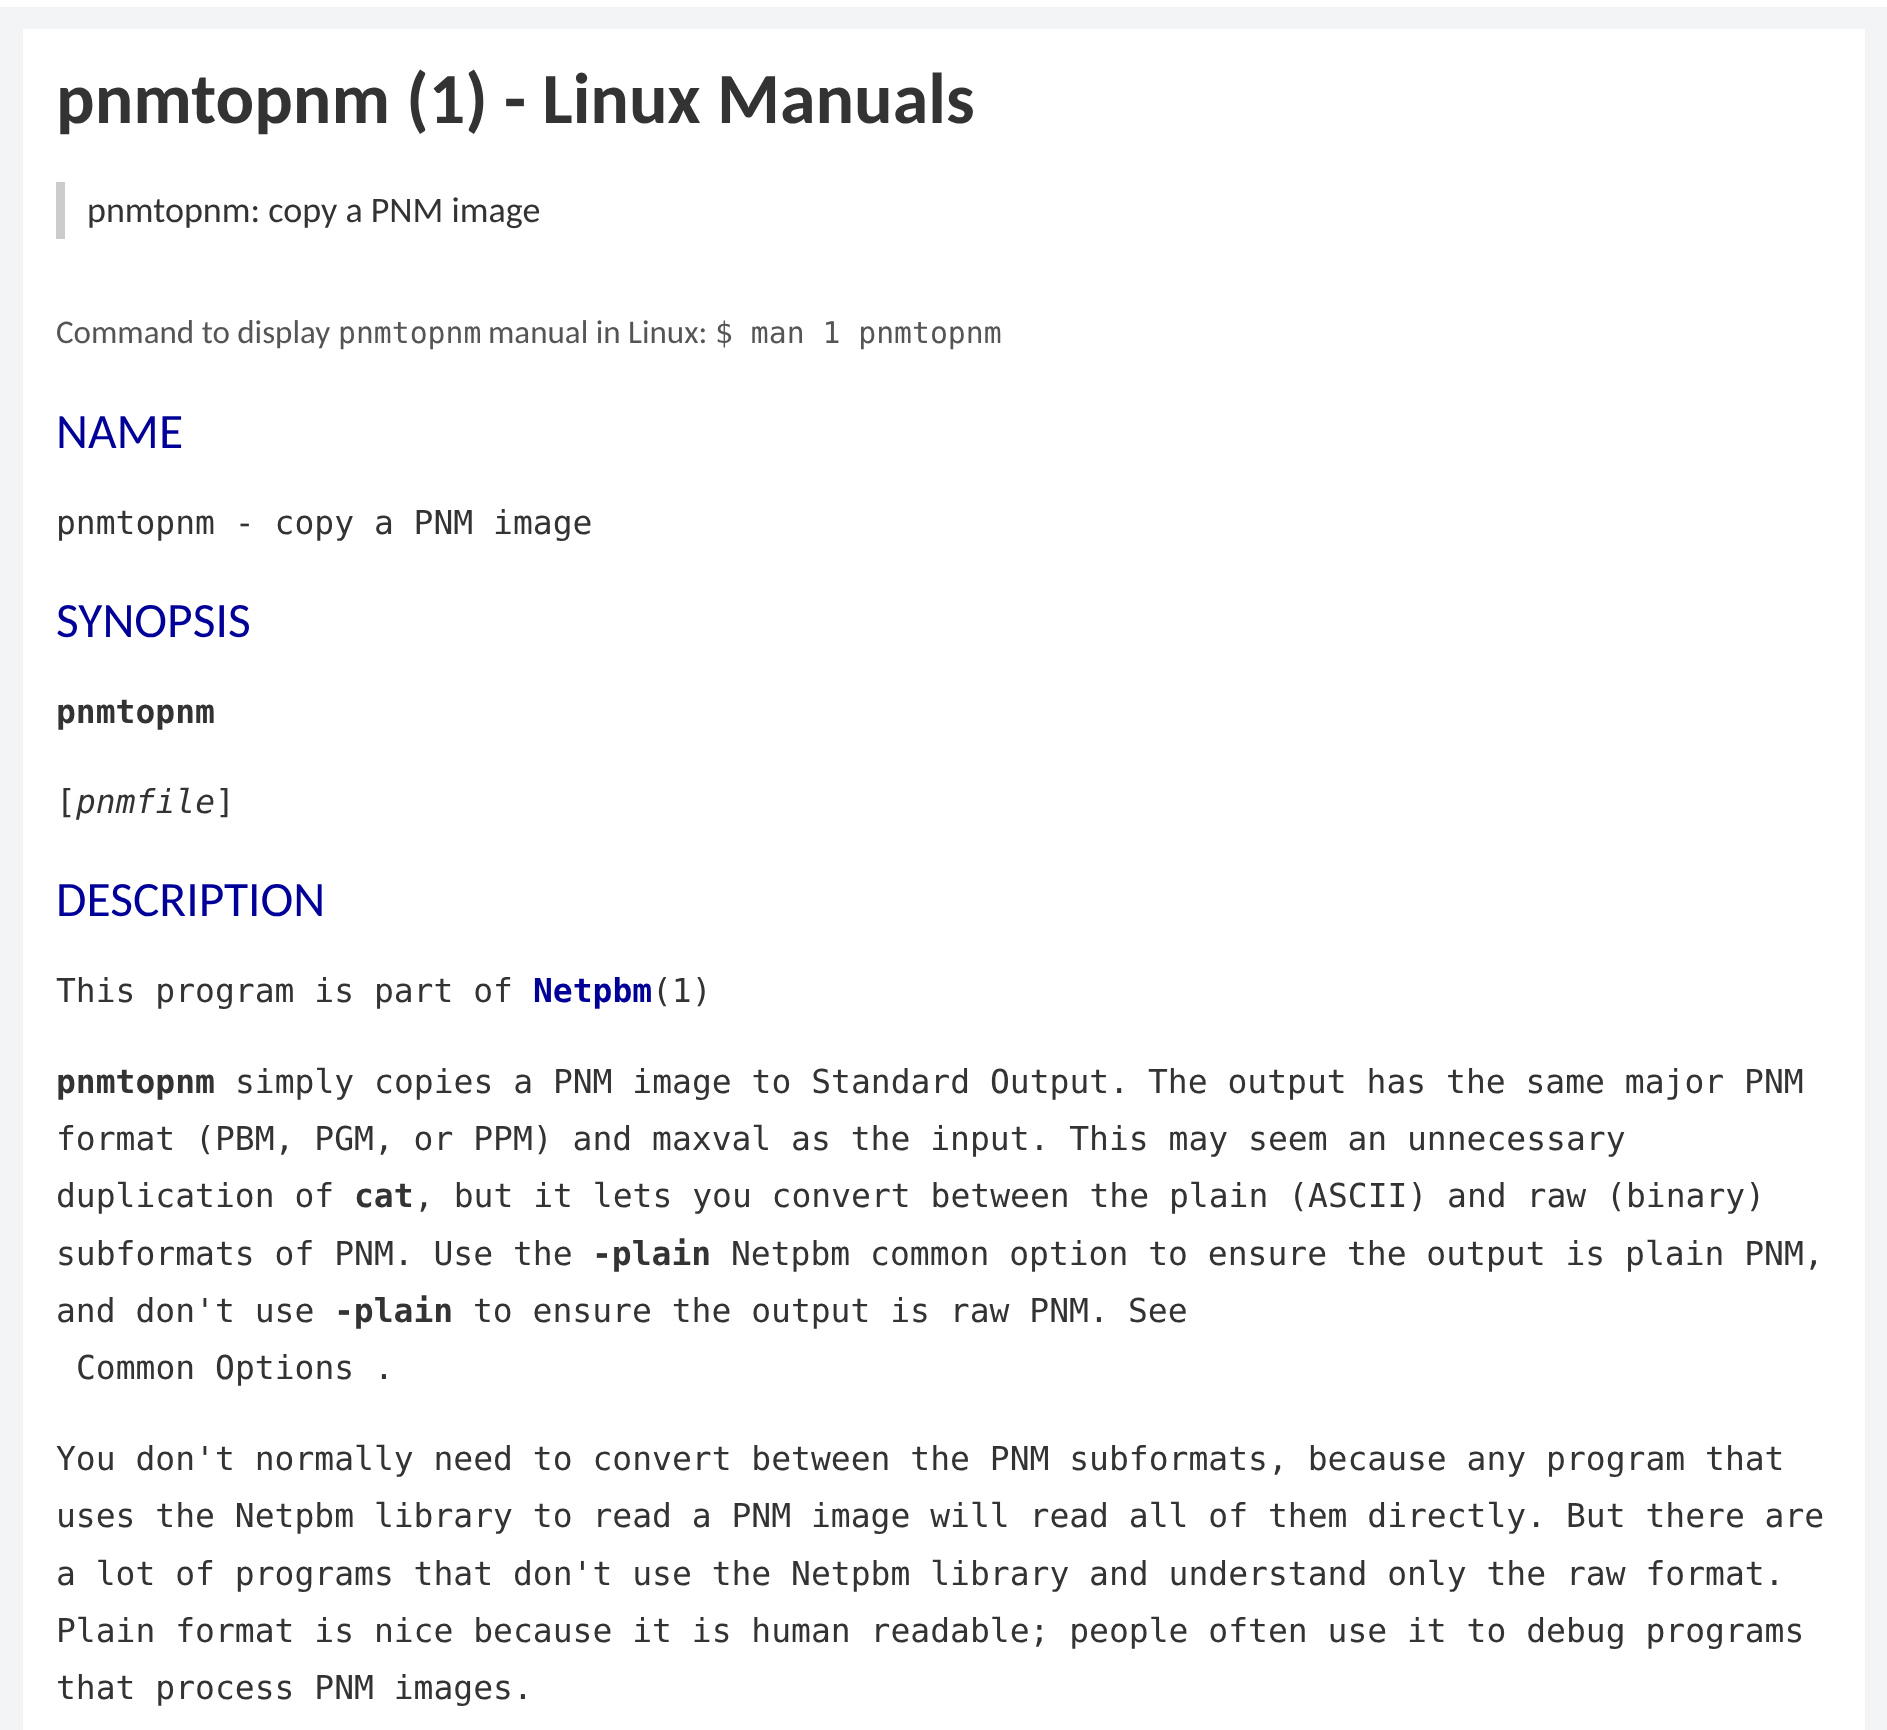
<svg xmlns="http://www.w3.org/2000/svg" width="1887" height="1730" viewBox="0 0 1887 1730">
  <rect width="100%" height="100%" fill="rgb(243,244,246)"/>
  <rect x="0" y="0" width="1887" height="7" fill="rgb(255,255,255)"/>
  <rect x="23" y="29" width="1842" height="1701" fill="rgb(255,255,255)"/>
  <text x="56" y="123" font-family="Carlito" font-size="72" font-weight="bold" fill="rgb(51,51,51)">pnmtopnm (1) - Linux Manuals</text>
  <rect x="56" y="182" width="9" height="57" fill="rgb(204,204,204)"/>
  <text x="87" y="222" font-family="Carlito" font-size="36" fill="rgb(51,51,51)">pnmtopnm: copy a PNM image</text>
  <text x="56" y="343" font-family="Carlito" font-size="33" fill="rgb(85,85,85)">Command to display</text>
  <text x="338" y="343" font-family="DejaVu Sans Mono" font-size="29.75" fill="rgb(85,85,85)">pnmtopnm</text>
  <text x="488" y="343" font-family="Carlito" font-size="33" fill="rgb(85,85,85)">manual in Linux:</text>
  <text x="715" y="343" font-family="DejaVu Sans Mono" font-size="29.75" fill="rgb(85,85,85)">$ man 1 pnmtopnm</text>
  <text x="56" y="448" font-family="Carlito" font-size="49.5" fill="rgb(0,0,153)">NAME</text>
  <text x="56" y="534" font-family="DejaVu Sans Mono" font-size="33" fill="rgb(51,51,51)">pnmtopnm - copy a PNM image</text>
  <text x="56" y="637" font-family="Carlito" font-size="49.5" fill="rgb(0,0,153)">SYNOPSIS</text>
  <text x="56" y="723" font-family="DejaVu Sans Mono" font-size="33" font-weight="bold" fill="rgb(51,51,51)">pnmtopnm</text>
  <text x="56" y="813" font-family="DejaVu Sans Mono" font-size="33" fill="rgb(51,51,51)">[</text>
  <text x="76" y="813" font-family="DejaVu Sans Mono" font-size="33" font-style="italic" fill="rgb(51,51,51)">pnmfile</text>
  <text x="215" y="813" font-family="DejaVu Sans Mono" font-size="33" fill="rgb(51,51,51)">]</text>
  <text x="56" y="916" font-family="Carlito" font-size="49.5" fill="rgb(0,0,153)">DESCRIPTION</text>
  <text x="56" y="1002" font-family="DejaVu Sans Mono" font-size="33" fill="rgb(51,51,51)">This program is part of</text>
  <text x="533" y="1002" font-family="DejaVu Sans Mono" font-size="33" font-weight="bold" fill="rgb(0,0,153)">Netpbm</text>
  <text x="652" y="1002" font-family="DejaVu Sans Mono" font-size="33" fill="rgb(51,51,51)">(1)</text>
  <text x="56" y="1093" font-family="DejaVu Sans Mono" font-size="33" font-weight="bold" fill="rgb(51,51,51)">pnmtopnm</text>
  <g font-family="DejaVu Sans Mono" font-size="33" fill="rgb(51,51,51)">
    <text x="235" y="1093">simply copies a PNM image to Standard Output.</text>
    <text x="1148" y="1093">The output has the same major PNM</text>
    <text>
      <tspan x="56" y="1150">format (PBM, PGM, or PPM) and maxval as the input. This may seem an unnecessary</tspan>
      <tspan x="56" y="1207">duplication of</tspan>
    </text>
  </g>
  <text x="354" y="1207" font-family="DejaVu Sans Mono" font-size="33" font-weight="bold" fill="rgb(51,51,51)">cat</text>
  <g font-family="DejaVu Sans Mono" font-size="33" fill="rgb(51,51,51)">
    <text x="414" y="1207">, but it lets you convert between the plain (ASCII) and raw (binary)</text>
    <text x="56" y="1265">subformats of PNM. Use the</text>
  </g>
  <text x="592" y="1265" font-family="DejaVu Sans Mono" font-size="33" font-weight="bold" fill="rgb(51,51,51)">-plain</text>
  <g font-family="DejaVu Sans Mono" font-size="33" fill="rgb(51,51,51)">
    <text x="731" y="1265">Netpbm common option to ensure the output is plain PNM,</text>
    <text x="56" y="1322">and don't use</text>
  </g>
  <text x="334" y="1322" font-family="DejaVu Sans Mono" font-size="33" font-weight="bold" fill="rgb(51,51,51)">-plain</text>
  <g font-family="DejaVu Sans Mono" font-size="33" fill="rgb(51,51,51)">
    <text x="473" y="1322">to ensure the output is raw PNM.</text>
    <text x="1128" y="1322">See</text>
    <text x="76" y="1379">Common Options .</text>
    <text>
      <tspan x="56" y="1470">You don't normally need to convert between the PNM subformats, because any program that</tspan>
      <tspan x="56" y="1527">uses the Netpbm library to read a PNM image will read all of them directly. But there are</tspan>
      <tspan x="56" y="1585">a lot of programs that don't use the Netpbm library and understand only the raw format.</tspan>
      <tspan x="56" y="1642">Plain format is nice because it is human readable; people often use it to debug programs</tspan>
      <tspan x="56" y="1699">that process PNM images.</tspan>
    </text>
  </g>
</svg>
